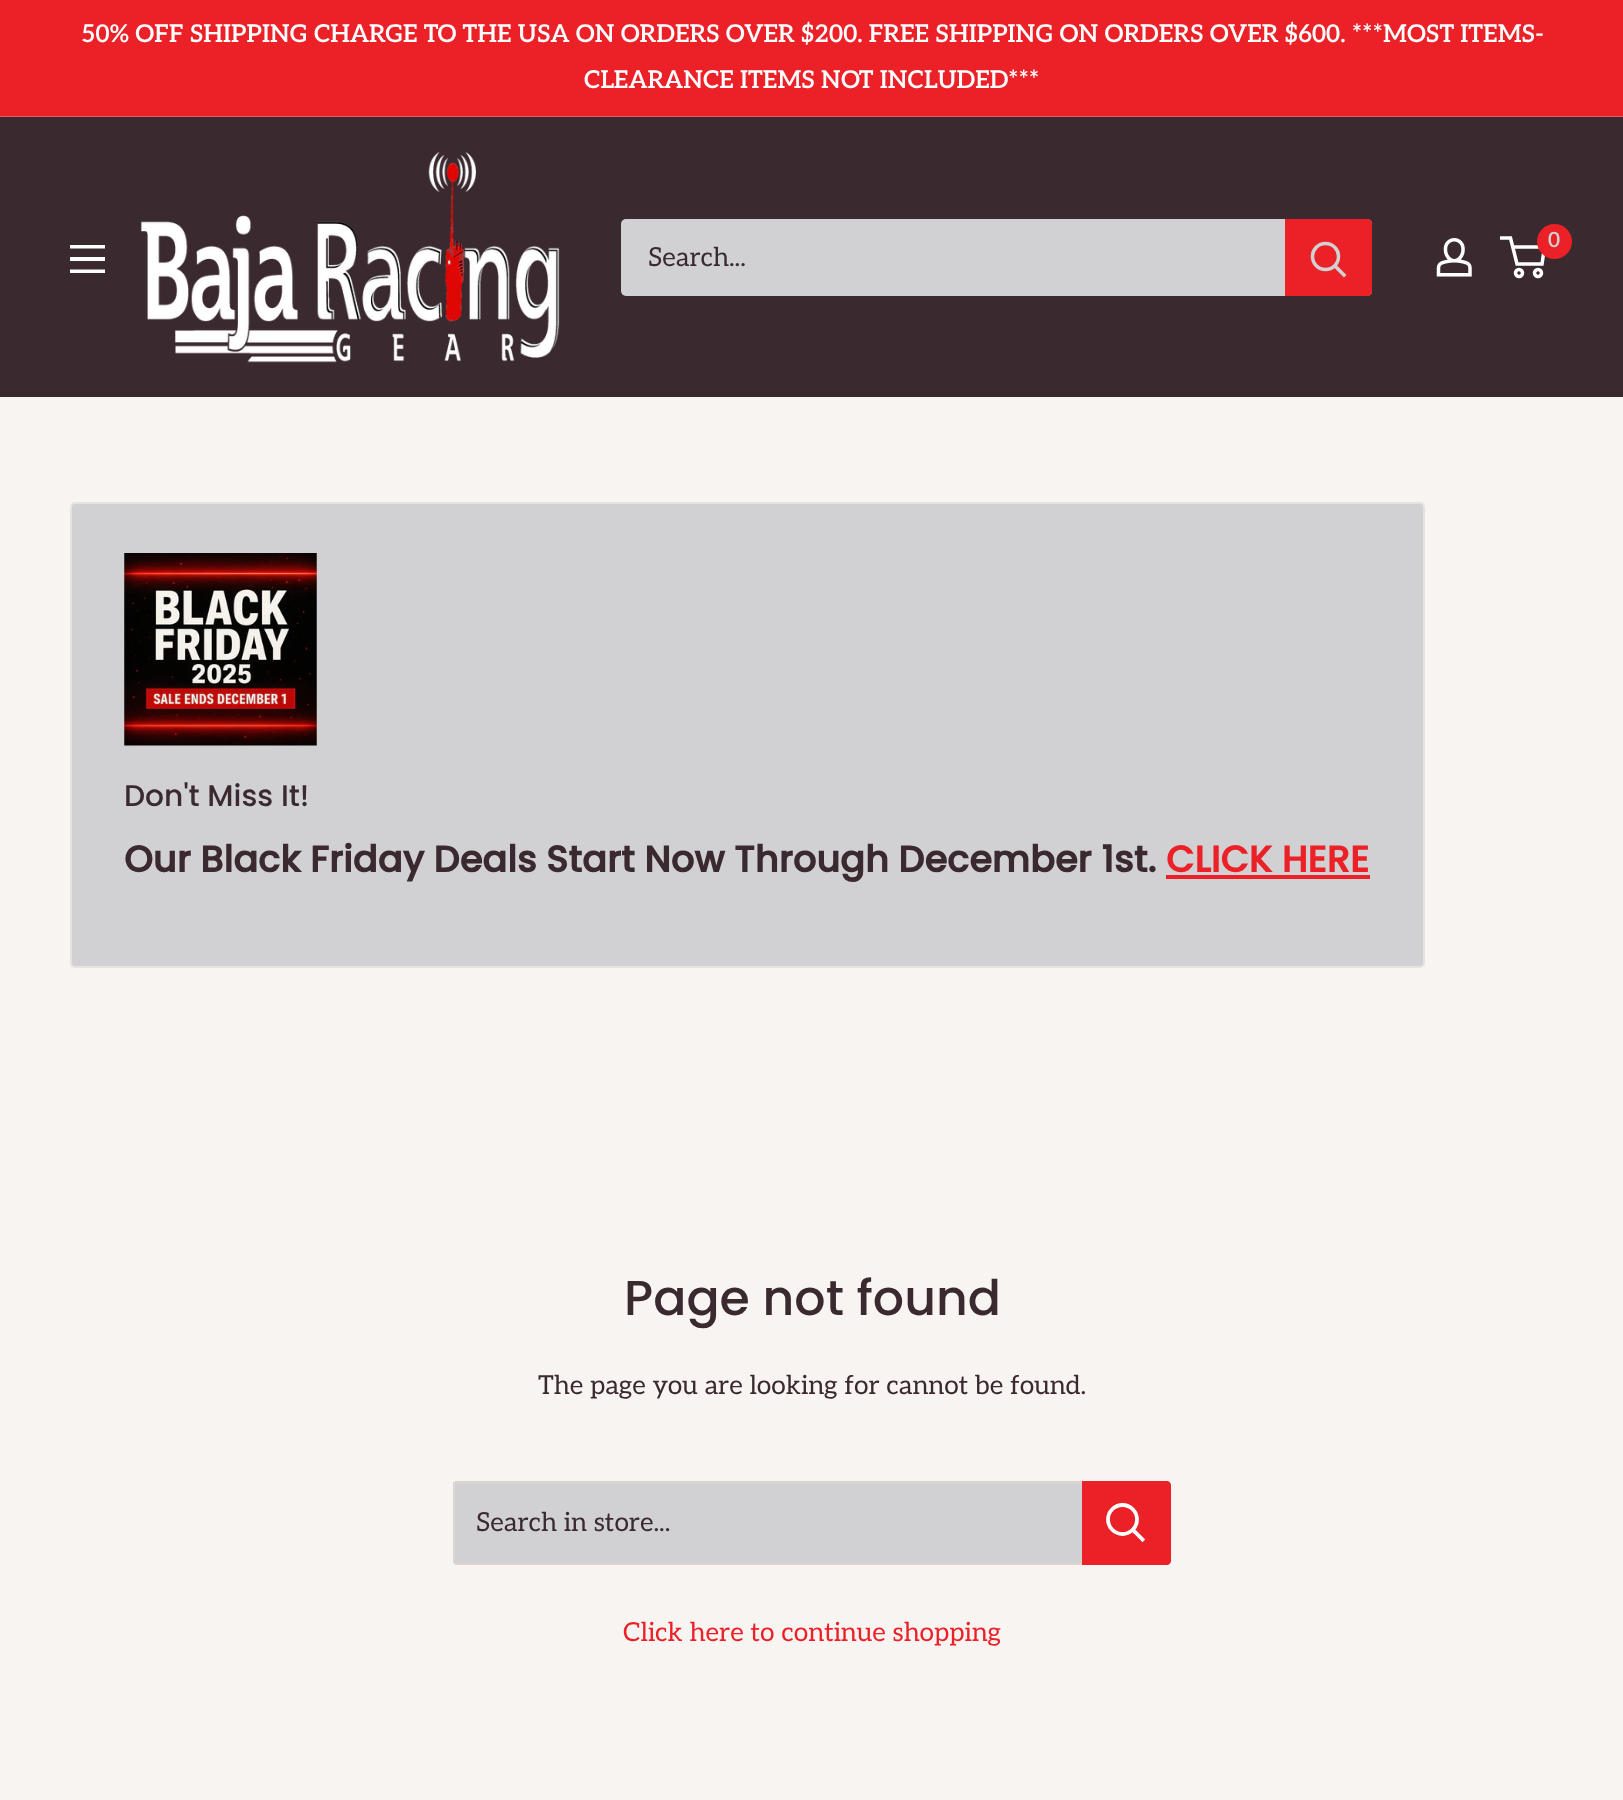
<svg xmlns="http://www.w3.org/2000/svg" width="1623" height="1800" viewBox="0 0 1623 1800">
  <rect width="100%" height="100%" fill="rgb(247,244,242)"/>
  <rect x="0" y="0" width="1623" height="116" fill="rgb(236,33,39)"/>
  <rect x="0" y="116" width="1623" height="1" fill="rgb(235,91,94)"/>
  <g font-family="Aleo" font-size="24.5" font-weight="600" fill="rgb(255,255,255)">
    <text x="81" y="42">50% OFF SHIPPING CHARGE TO THE USA ON ORDERS OVER $200. FREE SHIPPING ON ORDERS OVER $600. ***MOST ITEMS-</text>
    <text x="584" y="88">CLEARANCE ITEMS NOT INCLUDED***</text>
  </g>
  <rect x="0" y="117" width="1623" height="280" fill="rgb(58,42,47)"/>
  <image x="140" y="152" width="420" height="211" href="pic1.png"/>
  <image x="1436" y="238" width="36" height="39" href="pic2.png"/>
  <circle cx="1519" cy="273" r="3.5" fill="none" stroke="rgb(255,255,255)" stroke-width="3.5"/>
  <circle cx="1538" cy="273" r="3.5" fill="none" stroke="rgb(255,255,255)" stroke-width="3.5"/>
  <path d="M1512.5 247H1544.5L1542 264H1517L1510.5 238H1500" fill="none" stroke="rgb(255,255,255)" stroke-width="3.5"/>
  <circle cx="1554.5" cy="241.5" r="17.5" fill="rgb(236,33,39)"/>
  <text x="1548" y="247" font-family="Aleo" font-size="21" font-weight="600" fill="rgb(209,209,212)">0</text>
  <path d="M70 269.5H105V273H70ZM70 245H105V248.5H70ZM70 257H105V261H70Z" fill="rgb(255,255,255)" fill-rule="evenodd"/>
  <rect x="621" y="219" width="751" height="77" rx="5" fill="rgb(209,209,212)"/>
  <text x="648" y="266" font-family="Aleo" font-size="26.25" fill="rgb(58,42,47)">Search...</text>
  <path d="M1285 219H1367C1370 219 1372 221 1372 224V291C1372 294 1370 296 1367 296H1285Z" fill="rgb(236,33,39)"/>
  <path d="M1344 275L1335 266" fill="none" stroke="rgb(209,209,212)" stroke-width="3.5" stroke-linecap="square"/>
  <circle cx="1325.5" cy="256.5" r="13" fill="none" stroke="rgb(209,209,212)" stroke-width="3.5"/>
  <rect x="71" y="503" width="1353" height="464" rx="4" fill="rgb(209,209,212)" stroke="rgb(231,226,222)" stroke-width="2"/>
  <image x="124" y="553" width="193" height="193" href="pic3.png"/>
  <text x="124" y="806" font-family="Poppins" font-size="29.75" font-weight="500" fill="rgb(58,42,47)">Don't Miss It!</text>
  <text x="124" y="872" font-family="Poppins" font-size="36.75" font-weight="bold" fill="rgb(58,42,47)">Our Black Friday Deals Start Now Through December 1st.</text>
  <text x="1166" y="872" font-family="Poppins" font-size="36.75" font-weight="bold" fill="rgb(236,33,39)">CLICK HERE</text>
  <rect x="1166" y="875" width="204" height="4" fill="rgb(236,33,39)"/>
  <text x="624" y="1315" font-family="Poppins" font-size="49" font-weight="500" fill="rgb(58,42,47)">Page not found</text>
  <text x="538" y="1394" font-family="Aleo" font-size="26.25" fill="rgb(58,42,47)">The page you are looking for cannot be found.</text>
  <path d="M457 1481H1082V1565H457C455 1565 453 1563 453 1561V1485C453 1483 455 1481 457 1481Z" fill="rgb(209,209,212)"/>
  <path d="M457 1484H1082V1482H457C455 1482 455 1484 455 1486C455 1485 456 1484 457 1484Z" fill="rgb(215,213,215)"/>
  <rect x="455" y="1481" width="627" height="2" fill="rgb(220,213,207)"/>
  <rect x="455" y="1563" width="627" height="2" fill="rgb(220,213,207)"/>
  <rect x="453" y="1482" width="2" height="81" fill="rgb(220,213,207)"/>
  <text x="476" y="1531" font-family="Aleo" font-size="26.25" fill="rgb(58,42,47)">Search in store...</text>
  <path d="M1082 1481H1167C1169 1481 1171 1483 1171 1485V1561C1171 1563 1169 1565 1167 1565H1082Z" fill="rgb(236,33,39)"/>
  <path d="M1142.5 1539.5L1133 1530" fill="none" stroke="rgb(255,255,255)" stroke-width="3.8" stroke-linecap="square"/>
  <circle cx="1122.5" cy="1519.5" r="14.5" fill="none" stroke="rgb(255,255,255)" stroke-width="3.8"/>
  <text x="623" y="1641" font-family="Aleo" font-size="26.25" fill="rgb(236,33,39)">Click here to continue shopping</text>
</svg>
